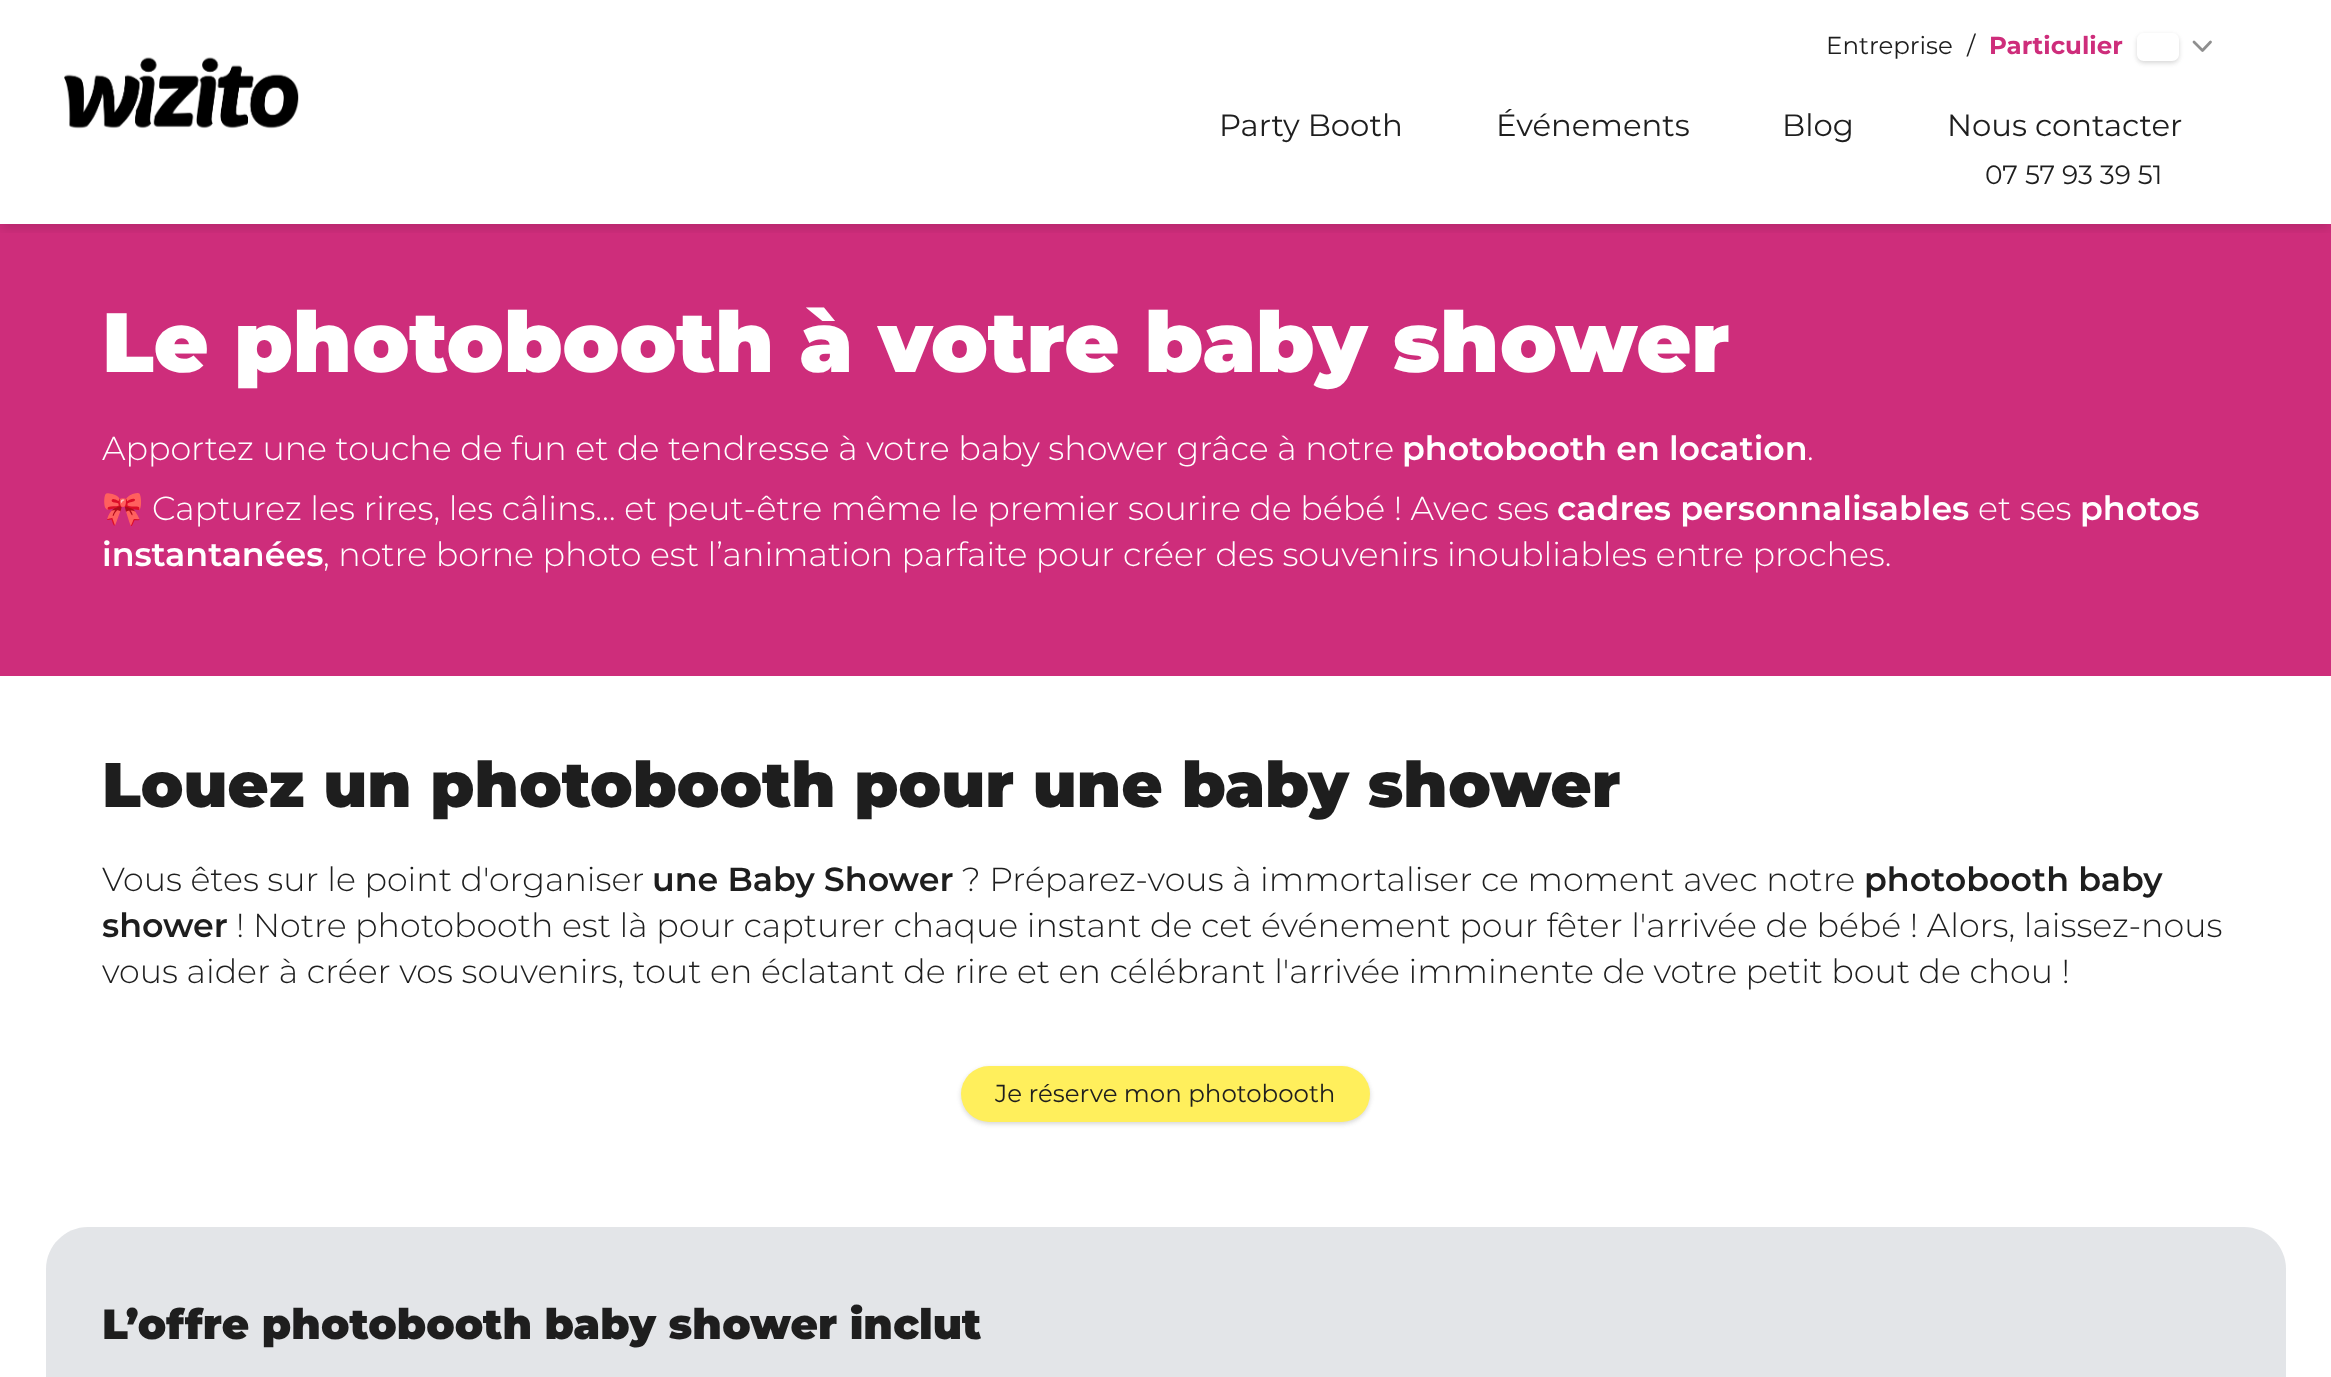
<svg xmlns="http://www.w3.org/2000/svg" width="2331" height="1377" viewBox="0 0 2331 1377">
  <defs>
    <clipPath id="clip1"><rect x="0" y="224" width="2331" height="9"/></clipPath>
    <clipPath id="clip2"><path d="M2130 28H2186V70H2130ZM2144 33H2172C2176 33 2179 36 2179 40V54C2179 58 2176 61 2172 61H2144C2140 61 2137 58 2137 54V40C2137 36 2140 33 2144 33Z" clip-rule="evenodd"/></clipPath>
    <clipPath id="clip3"><path d="M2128 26H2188V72H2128ZM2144 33H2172C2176 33 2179 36 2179 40V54C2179 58 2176 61 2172 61H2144C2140 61 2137 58 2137 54V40C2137 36 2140 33 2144 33Z" clip-rule="evenodd"/></clipPath>
  </defs>
  <rect width="100%" height="100%" fill="rgb(255,255,255)"/>
  <rect x="0" y="224" width="2331" height="452" fill="rgb(206,45,123)"/>
  <g clip-path="url(#clip1)">
    <rect x="2" y="9" width="2327" height="220" fill="rgba(0,0,0,0.1)" filter="blur(5px)"/>
  </g>
  <g font-family="Montserrat" font-size="24.5" fill="rgb(30,30,30)">
    <text x="1826" y="54">Entreprise</text>
    <text x="1967" y="54">/</text>
  </g>
  <text x="1989" y="54" font-family="Montserrat" font-size="24.5" font-weight="bold" fill="rgb(206,45,123)">Particulier</text>
  <g clip-path="url(#clip2)">
    <rect x="2137" y="35" width="42" height="28" rx="7" fill="rgba(0,0,0,0.06)" filter="blur(2px)"/>
  </g>
  <g clip-path="url(#clip3)">
    <rect x="2137" y="35" width="42" height="28" rx="7" fill="rgba(0,0,0,0.1)" filter="blur(2.5px)"/>
  </g>
  <path d="M2194 42L2202.5 50.5L2210.5 42" fill="none" stroke="rgb(143,143,143)" stroke-width="2.8" stroke-linecap="round" stroke-linejoin="round"/>
  <image x="64" y="57" width="235" height="72" href="pic1.png"/>
  <g font-family="Montserrat" font-size="30.75" fill="rgb(30,30,30)">
    <text x="1219" y="136">Party Booth</text>
    <text x="1496" y="136">Événements</text>
    <text x="1782" y="136">Blog</text>
    <text x="1947" y="136">Nous contacter</text>
  </g>
  <text x="1985" y="184" font-family="Montserrat" font-size="26.5" fill="rgb(30,30,30)">07 57 93 39 51</text>
  <text x="102" y="372" font-family="Montserrat" font-size="84" font-weight="900" fill="rgb(255,255,255)">Le photobooth à votre baby shower</text>
  <text x="102" y="460" font-family="Montserrat" font-size="33.32" font-weight="300" fill="rgb(255,255,255)">Apportez une touche de fun et de tendresse à votre baby shower grâce à notre</text>
  <text x="1402" y="460" font-family="Montserrat" font-size="33.32" font-weight="600" fill="rgb(255,255,255)">photobooth en location</text>
  <text x="1807" y="460" font-family="Montserrat" font-size="33.32" font-weight="300" fill="rgb(255,255,255)">.</text>
  <text x="102" y="520" font-family="Noto Color Emoji" font-size="33.32" fill="rgb(255,255,255)">🎀</text>
  <text x="152" y="520" font-family="Montserrat" font-size="33.32" font-weight="300" fill="rgb(255,255,255)">Capturez les rires, les câlins… et peut-être même le premier sourire de bébé ! Avec ses</text>
  <text x="1557" y="520" font-family="Montserrat" font-size="33.32" font-weight="600" fill="rgb(255,255,255)">cadres personnalisables</text>
  <text x="1978" y="520" font-family="Montserrat" font-size="33.32" font-weight="300" fill="rgb(255,255,255)">et ses</text>
  <g font-family="Montserrat" font-size="33.32" font-weight="600" fill="rgb(255,255,255)">
    <text x="2080" y="520">photos</text>
    <text x="102" y="566">instantanées</text>
  </g>
  <text x="323" y="566" font-family="Montserrat" font-size="33.32" font-weight="300" fill="rgb(255,255,255)">, notre borne photo est l’animation parfaite pour créer des souvenirs inoubliables entre proches.</text>
  <text x="102" y="807" font-family="Montserrat" font-size="63" font-weight="900" fill="rgb(30,30,30)">Louez un photobooth pour une baby shower</text>
  <text x="102" y="891" font-family="Montserrat" font-size="33.32" font-weight="300" fill="rgb(30,30,30)">Vous êtes sur le point d'organiser</text>
  <text x="652" y="891" font-family="Montserrat" font-size="33.32" font-weight="600" fill="rgb(30,30,30)">une Baby Shower</text>
  <text x="962" y="891" font-family="Montserrat" font-size="33.32" font-weight="300" fill="rgb(30,30,30)">? Préparez-vous à immortaliser ce moment avec notre</text>
  <g font-family="Montserrat" font-size="33.32" font-weight="600" fill="rgb(30,30,30)">
    <text x="1864" y="891">photobooth baby</text>
    <text x="102" y="937">shower</text>
  </g>
  <g font-family="Montserrat" font-size="33.32" font-weight="300" fill="rgb(30,30,30)">
    <text x="236" y="937">! Notre photobooth est là pour capturer chaque instant de cet événement pour fêter l'arrivée de bébé ! Alors, laissez-nous</text>
    <text x="102" y="983">vous aider à créer vos souvenirs, tout en éclatant de rire et en célébrant l'arrivée imminente de votre petit bout de chou !</text>
  </g>
  <rect x="961" y="1068" width="409" height="56" rx="28" fill="rgba(0,0,0,0.06)" filter="blur(2px)"/>
  <rect x="961" y="1068" width="409" height="56" rx="28" fill="rgba(0,0,0,0.1)" filter="blur(2.5px)"/>
  <rect x="961" y="1066" width="409" height="56" rx="28" fill="rgb(255,239,92)"/>
  <text x="995" y="1102" font-family="Montserrat" font-size="24.5" fill="rgb(30,30,30)">Je réserve mon photobooth</text>
  <path d="M88 1227H2244C2267 1227 2286 1246 2286 1269V1377H46V1269C46 1246 65 1227 88 1227Z" fill="rgb(227,229,232)"/>
  <text x="102" y="1339" font-family="Montserrat" font-size="42" font-weight="900" fill="rgb(30,30,30)">L’offre photobooth baby shower inclut</text>
</svg>
